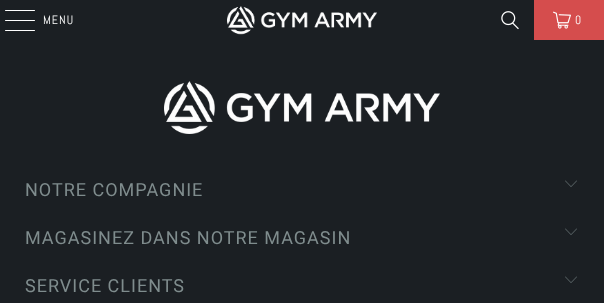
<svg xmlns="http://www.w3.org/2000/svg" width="604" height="303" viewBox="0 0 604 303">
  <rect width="100%" height="100%" fill="rgb(27,31,35)"/>
  <rect x="5" y="10" width="30" height="1" rx="0.5" fill="rgb(255,255,255)"/>
  <rect x="5" y="20" width="30" height="1" rx="0.5" fill="rgb(255,255,255)"/>
  <rect x="5" y="30" width="30" height="1" rx="0.5" fill="rgb(255,255,255)"/>
  <text x="43" y="24" font-family="Abel" font-size="12" letter-spacing="1" fill="rgb(255,255,255)">MENU</text>
  <image x="227" y="6" width="150" height="29" href="pic1.png"/>
  <image x="501" y="11" width="18" height="19" href="pic2.png"/>
  <rect x="534" y="0" width="70" height="40" fill="rgb(213,77,77)"/>
  <image x="553" y="11" width="18" height="18" href="pic3.png"/>
  <text x="575" y="24" font-family="Abel" font-size="12" letter-spacing="1" fill="rgb(255,255,255)">0</text>
  <image x="164" y="81" width="276" height="53" href="pic4.png"/>
  <text x="25" y="196" font-family="Roboto" font-size="18" letter-spacing="1" fill="rgb(127,140,141)">NOTRE COMPAGNIE</text>
  <image x="565" y="180" width="12" height="7" href="pic5.png"/>
  <text x="25" y="244" font-family="Roboto" font-size="18" letter-spacing="1" fill="rgb(127,140,141)">MAGASINEZ DANS NOTRE MAGASIN</text>
  <image x="565" y="228" width="12" height="7" href="pic5.png"/>
  <text x="25" y="292" font-family="Roboto" font-size="18" letter-spacing="1" fill="rgb(127,140,141)">SERVICE CLIENTS</text>
  <image x="565" y="276" width="12" height="7" href="pic5.png"/>
</svg>
